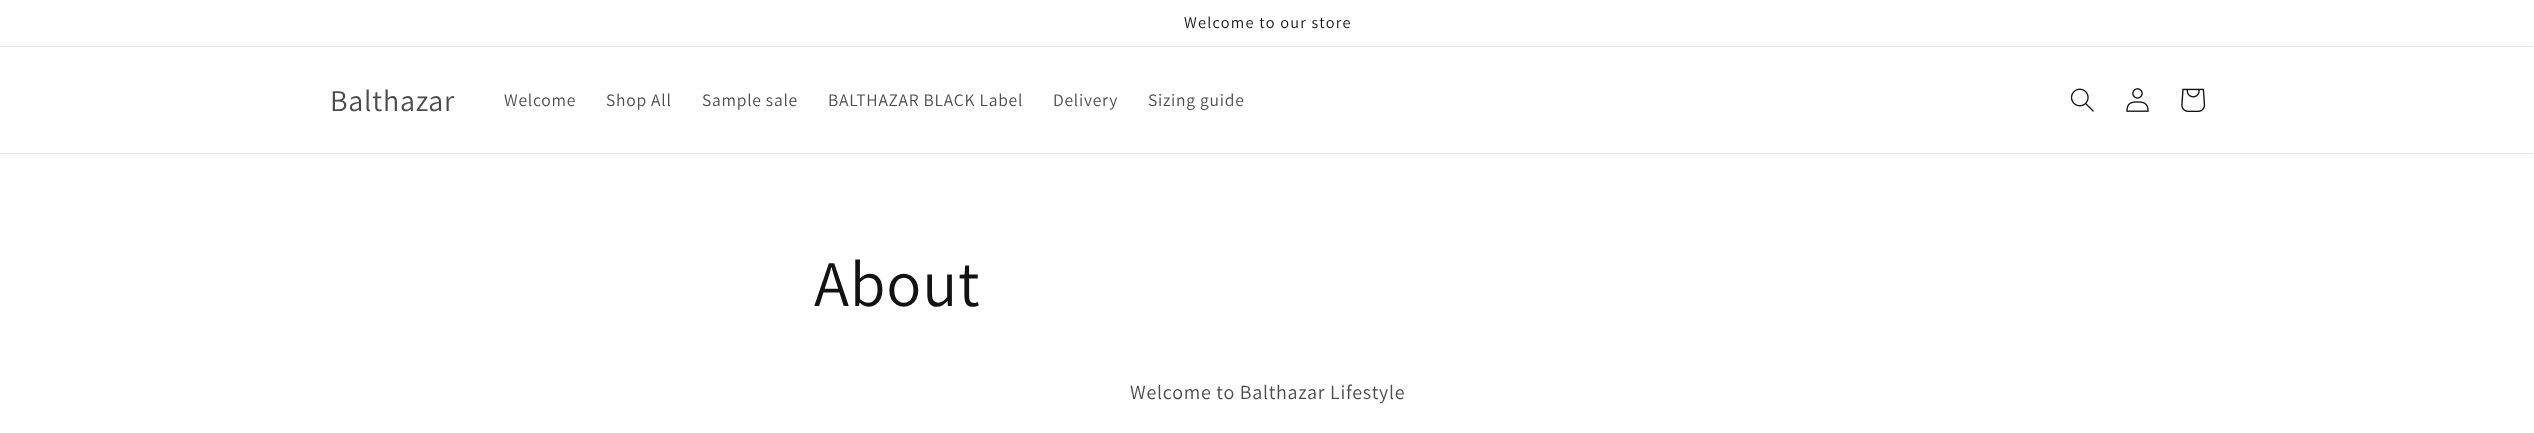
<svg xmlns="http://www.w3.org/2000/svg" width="2534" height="433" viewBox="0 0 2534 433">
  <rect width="100%" height="100%" fill="rgb(255,255,255)"/>
  <rect x="0" y="46" width="2534" height="1" fill="rgb(236,236,236)"/>
  <text x="1184" y="28" font-family="Assistant" font-size="16.25" letter-spacing="1.25" fill="rgb(18,18,18)">Welcome to our store</text>
  <rect x="0" y="153" width="2534" height="1" fill="rgb(236,236,236)"/>
  <text x="330" y="111" font-family="Assistant" font-size="30" letter-spacing="0.75" fill="rgb(77,77,77)">Balthazar</text>
  <g font-family="Assistant" font-size="17.5" letter-spacing="0.75" fill="rgb(77,77,77)">
    <text x="504" y="106">Welcome</text>
    <text x="606" y="106">Shop All</text>
    <text x="702" y="106">Sample sale</text>
    <text x="828" y="106">BALTHAZAR BLACK Label</text>
    <text x="1053" y="106">Delivery</text>
    <text x="1148" y="106">Sizing guide</text>
  </g>
  <image x="2070" y="88" width="24" height="24" href="pic1.png"/>
  <image x="2126" y="88" width="23" height="24" href="pic2.png"/>
  <image x="2181" y="88" width="25" height="24" href="pic3.png"/>
  <text x="814" y="306" font-family="Assistant" font-size="65" letter-spacing="0.75" fill="rgb(18,18,18)">About</text>
  <text x="1130" y="399" font-family="Assistant" font-size="20" letter-spacing="0.75" fill="rgb(77,77,77)">Welcome to Balthazar Lifestyle</text>
</svg>
